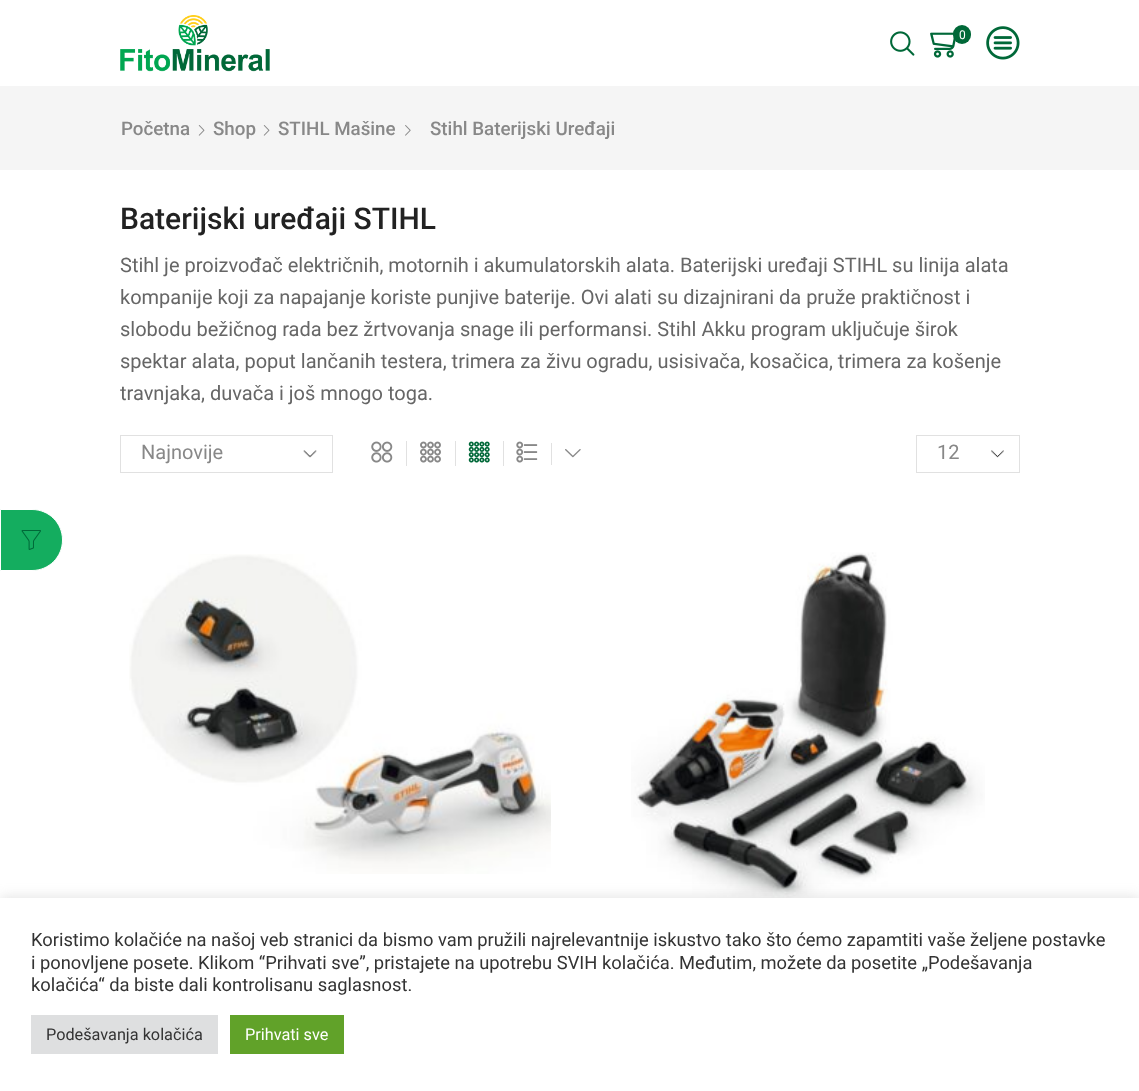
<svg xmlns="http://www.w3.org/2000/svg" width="1139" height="1091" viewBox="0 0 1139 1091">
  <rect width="100%" height="100%" fill="rgb(255,255,255)"/>
  <image x="120" y="15" width="150" height="57" href="pic1.png"/>
  <image x="890" y="31" width="25" height="25" href="pic2.png"/>
  <image x="930" y="32" width="26" height="26" href="pic3.png"/>
  <rect x="953" y="25" width="18" height="19" rx="9" fill="rgb(0,104,56)"/>
  <text x="959" y="39" font-family="Roboto" font-size="12" fill="rgb(255,255,255)">0</text>
  <image x="986" y="26" width="34" height="34" href="pic4.png"/>
  <rect x="0" y="86" width="1139" height="84" fill="rgb(245,245,245)"/>
  <text x="121" y="135" font-family="Roboto" font-size="18.75" font-weight="500" fill="rgb(136,136,136)">Početna</text>
  <image x="198" y="125" width="7" height="11" href="pic5.png"/>
  <text x="213" y="135" font-family="Roboto" font-size="18.75" font-weight="500" fill="rgb(136,136,136)">Shop</text>
  <image x="263" y="125" width="7" height="11" href="pic5.png"/>
  <text x="278" y="135" font-family="Roboto" font-size="18.75" font-weight="500" fill="rgb(136,136,136)">STIHL Mašine</text>
  <image x="405" y="125" width="6" height="11" href="pic6.png"/>
  <text x="430" y="135" font-family="Roboto" font-size="18.75" font-weight="500" fill="rgb(136,136,136)">Stihl Baterijski Uređaji</text>
  <text x="120" y="229" font-family="Roboto" font-size="30" font-weight="500" fill="rgb(34,34,34)">Baterijski uređaji STIHL</text>
  <g font-family="Roboto" font-size="20" fill="rgb(102,102,102)">
    <text>
      <tspan x="120" y="272">Stihl je proizvođač električnih, motornih i akumulatorskih alata. Baterijski uređaji STIHL su linija alata</tspan>
      <tspan x="120" y="304">kompanije koji za napajanje koriste punjive baterije. Ovi alati su dizajnirani da pruže praktičnost i</tspan>
      <tspan x="120" y="336">slobodu bežičnog rada bez žrtvovanja snage ili performansi. Stihl Akku program uključuje širok</tspan>
      <tspan x="120" y="368">spektar alata, poput lančanih testera, trimera za živu ogradu, usisivača, kosačica, trimera za košenje</tspan>
      <tspan x="120" y="400">travnjaka, duvača i još mnogo toga.</tspan>
    </text>
  </g>
  <image x="303" y="450" width="14" height="8" href="pic7.png"/>
  <rect x="120.5" y="435.5" width="212" height="37" fill="none" stroke="rgb(225,225,225)"/>
  <text x="141" y="459" font-family="Roboto" font-size="20" fill="rgb(136,136,136)">Najnovije</text>
  <image x="371" y="441" width="22" height="22" href="pic8.png"/>
  <rect x="406" y="441" width="1" height="25" fill="rgb(225,225,225)"/>
  <image x="420" y="441" width="21" height="22" href="pic9.png"/>
  <rect x="455" y="441" width="1" height="25" fill="rgb(225,225,225)"/>
  <image x="468" y="441" width="22" height="22" href="pic10.png"/>
  <rect x="503" y="441" width="1" height="25" fill="rgb(225,225,225)"/>
  <image x="516" y="441" width="22" height="22" href="pic11.png"/>
  <rect x="551" y="443" width="1" height="22" fill="rgb(225,225,225)"/>
  <image x="565" y="449" width="16" height="9" href="pic12.png"/>
  <image x="991" y="450" width="13" height="8" href="pic13.png"/>
  <rect x="916.5" y="435.5" width="103" height="37" fill="none" stroke="rgb(225,225,225)"/>
  <text x="937" y="459" font-family="Roboto" font-size="20" fill="rgb(136,136,136)">12</text>
  <image x="129" y="554" width="422" height="320" href="pic14.png"/>
  <image x="631" y="552" width="354" height="346" href="pic15.png"/>
  <path d="M.5 509.5H32C49 509.5 62.5 523 62.5 540C62.5 557 49 570.5 32 570.5H.5Z" fill="rgb(20,173,95)" stroke="rgb(255,255,255)"/>
  <image x="21" y="530" width="20" height="20" href="pic16.png"/>
  <rect x="0" y="896" width="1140" height="194" fill="rgba(172,171,171,0.3)" filter="blur(6px)"/>
  <rect x="0" y="898" width="1139" height="193" fill="rgb(255,255,255)"/>
  <g font-family="Roboto" font-size="18.33" fill="rgb(51,51,51)">
    <text>
      <tspan x="31" y="946">Koristimo kolačiće na našoj veb stranici da bismo vam pružili najrelevantnije iskustvo tako što ćemo zapamtiti vaše željene postavke</tspan>
      <tspan x="31" y="969">i ponovljene posete. Klikom “Prihvati sve”, pristajete na upotrebu SVIH kolačića. Međutim, možete da posetite „Podešavanja</tspan>
      <tspan x="31" y="991">kolačića“ da biste dali kontrolisanu saglasnost.</tspan>
    </text>
  </g>
  <rect x="31" y="1015" width="187" height="39" fill="rgb(222,223,224)"/>
  <text x="46" y="1040" font-family="Roboto" font-size="16.25" fill="rgb(51,51,51)">Podešavanja kolačića</text>
  <rect x="230" y="1015" width="114" height="39" fill="rgb(97,162,41)"/>
  <text x="245" y="1040" font-family="Roboto" font-size="16.25" fill="rgb(255,255,255)">Prihvati sve</text>
</svg>
